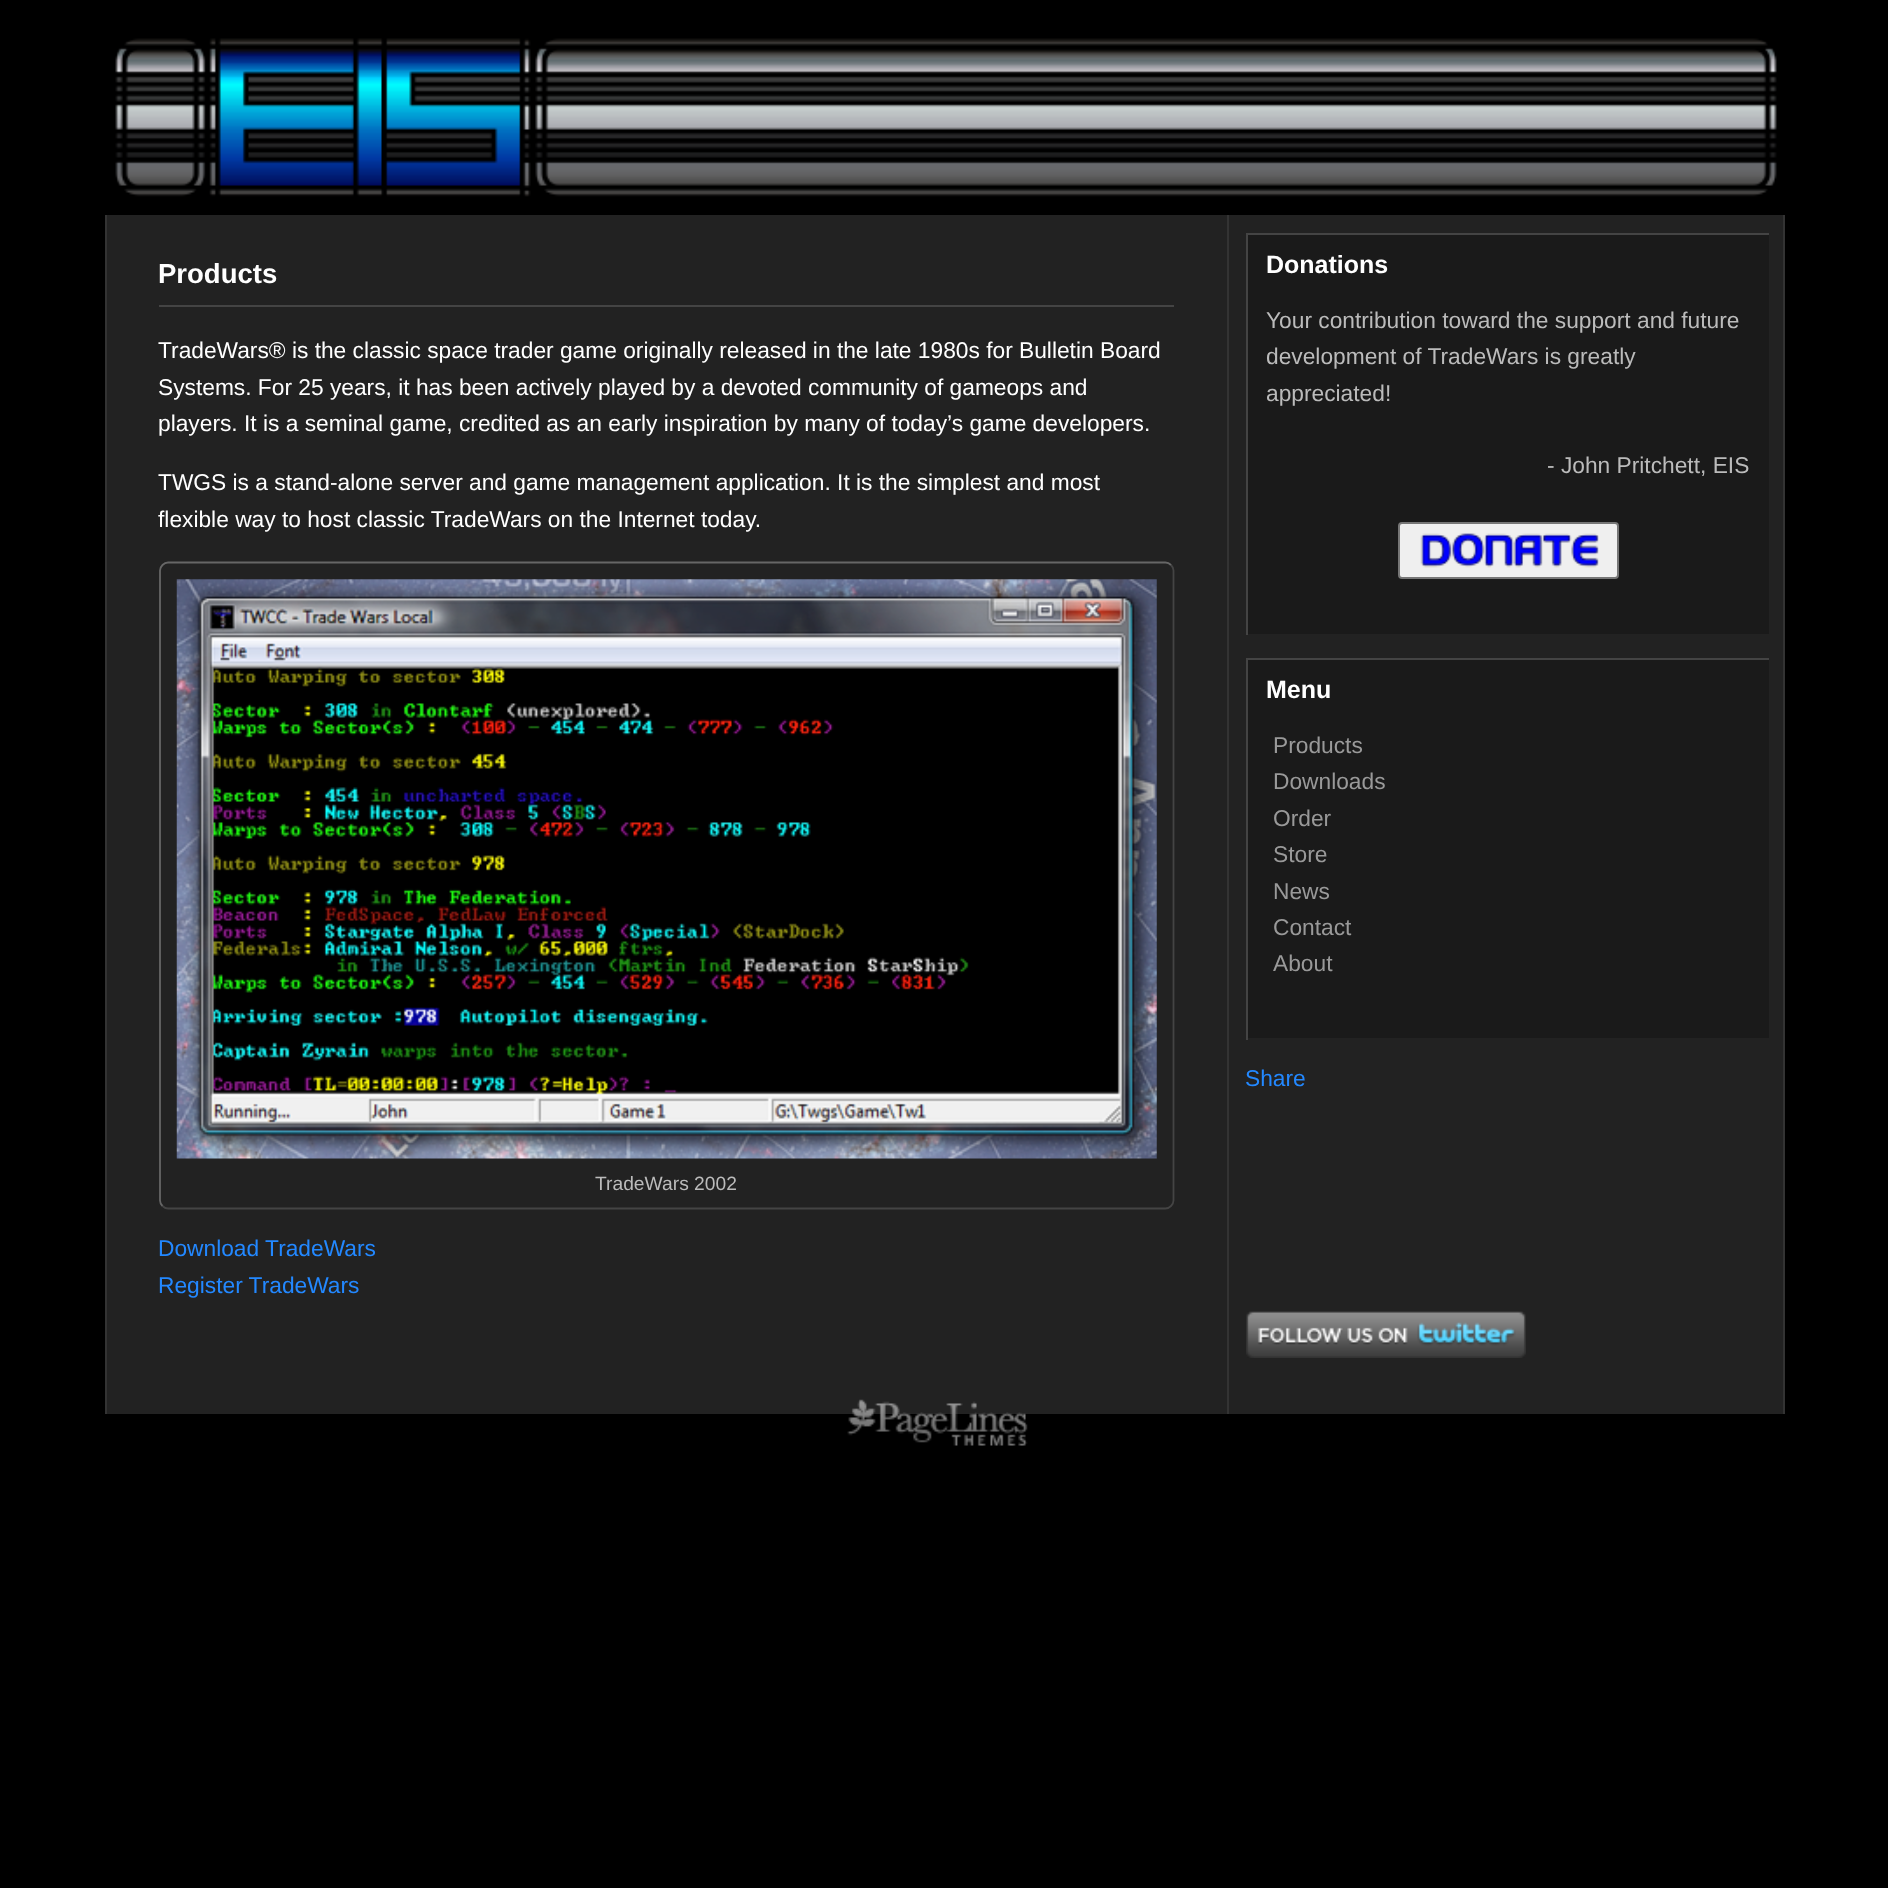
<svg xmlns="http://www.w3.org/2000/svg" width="1888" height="1888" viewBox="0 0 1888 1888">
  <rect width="100%" height="100%" fill="rgb(0,0,0)"/>
  <image x="107" y="38" width="1676" height="168" href="pic1.png"/>
  <rect x="107" y="215" width="1676" height="1199" fill="rgb(34,34,34)"/>
  <rect x="1783" y="215" width="2" height="1199" fill="rgb(51,51,51)"/>
  <rect x="105" y="215" width="2" height="1199" fill="rgb(51,51,51)"/>
  <rect x="159" y="305" width="1015" height="2" fill="rgb(68,68,68)"/>
  <text x="158" y="283" font-family="Liberation Sans" font-size="27.5" font-weight="bold" fill="rgb(255,255,255)">Products</text>
  <g font-family="Liberation Sans" font-size="22.75" fill="rgb(255,255,255)">
    <text>
      <tspan x="158" y="358">TradeWars® is the classic space trader game originally released in the late 1980s for Bulletin Board</tspan>
      <tspan x="158" y="395">Systems. For 25 years, it has been actively played by a devoted community of gameops and</tspan>
      <tspan x="158" y="431">players. It is a seminal game, credited as an early inspiration by many of today’s game developers.</tspan>
    </text>
    <text>
      <tspan x="158" y="490">TWGS is a stand-alone server and game management application. It is the simplest and most</tspan>
      <tspan x="158" y="527">flexible way to host classic TradeWars on the Internet today.</tspan>
    </text>
  </g>
  <path d="M1171 565C1172.5 566.5 1173.5 568.5 1173.5 570.5V1200.5C1173.5 1202.5 1172.5 1204.5 1171 1206C1169.5 1207.5 1167.5 1208.5 1165.5 1208.5H168C166 1208.5 164 1207.5 162.5 1206" fill="none" stroke="rgb(68,68,68)" stroke-width="1.8"/>
  <path d="M162.5 1206C161 1204.5 160 1202.5 160 1200.5V570.5C160 568.5 161 566.5 162.5 565C164 563.5 166 562.5 168 562.5H1165.5C1167.5 562.5 1169.5 563.5 1171 565" fill="none" stroke="rgb(102,102,102)" stroke-width="1.8"/>
  <image x="176" y="579" width="981" height="580" href="pic2.png"/>
  <text x="595" y="1190" font-family="Liberation Sans" font-size="19.25" fill="rgb(187,187,187)">TradeWars 2002</text>
  <g font-family="Liberation Sans" font-size="22.75" fill="rgb(35,136,255)">
    <text>
      <tspan x="158" y="1256">Download TradeWars</tspan>
      <tspan x="158" y="1293">Register TradeWars</tspan>
    </text>
  </g>
  <rect x="1227" y="215" width="2" height="1199" fill="rgb(51,51,51)"/>
  <rect x="1248" y="235" width="521" height="399" fill="rgb(26,26,26)"/>
  <rect x="1246" y="233" width="525" height="2" fill="rgb(68,68,68)"/>
  <rect x="1769" y="233" width="2" height="2" fill="rgb(34,34,34)"/>
  <rect x="1246" y="233" width="2" height="402" fill="rgb(68,68,68)"/>
  <text x="1266" y="273" font-family="Liberation Sans" font-size="25" font-weight="bold" fill="rgb(255,255,255)">Donations</text>
  <g font-family="Liberation Sans" font-size="22.75" fill="rgb(187,187,187)">
    <text>
      <tspan x="1266" y="328">Your contribution toward the support and future</tspan>
      <tspan x="1266" y="364">development of TradeWars is greatly</tspan>
      <tspan x="1266" y="401">appreciated!</tspan>
    </text>
    <text x="1547" y="473">- John Pritchett, EIS</text>
  </g>
  <rect x="1399" y="523" width="219" height="55" rx="3" fill="rgb(239,239,239)" stroke="rgb(118,118,118)" stroke-width="2"/>
  <image x="1420" y="533" width="179" height="35" href="pic3.png"/>
  <rect x="1248" y="660" width="521" height="378" fill="rgb(26,26,26)"/>
  <rect x="1246" y="658" width="525" height="2" fill="rgb(68,68,68)"/>
  <rect x="1769" y="658" width="2" height="2" fill="rgb(34,34,34)"/>
  <rect x="1246" y="658" width="2" height="382" fill="rgb(68,68,68)"/>
  <text x="1266" y="698" font-family="Liberation Sans" font-size="25" font-weight="bold" fill="rgb(255,255,255)">Menu</text>
  <g font-family="Liberation Sans" font-size="22.75" fill="rgb(153,153,153)">
    <text>
      <tspan x="1273" y="753">Products</tspan>
      <tspan x="1273" y="789">Downloads</tspan>
      <tspan x="1273" y="826">Order</tspan>
      <tspan x="1273" y="862">Store</tspan>
      <tspan x="1273" y="899">News</tspan>
      <tspan x="1273" y="935">Contact</tspan>
      <tspan x="1273" y="971">About</tspan>
    </text>
  </g>
  <text x="1245" y="1086" font-family="Liberation Sans" font-size="22.75" fill="rgb(35,136,255)">Share</text>
  <image x="1246" y="1311" width="280" height="47" href="pic4.png"/>
  <image x="847" y="1399" width="181" height="47" href="pic5.png"/>
</svg>
